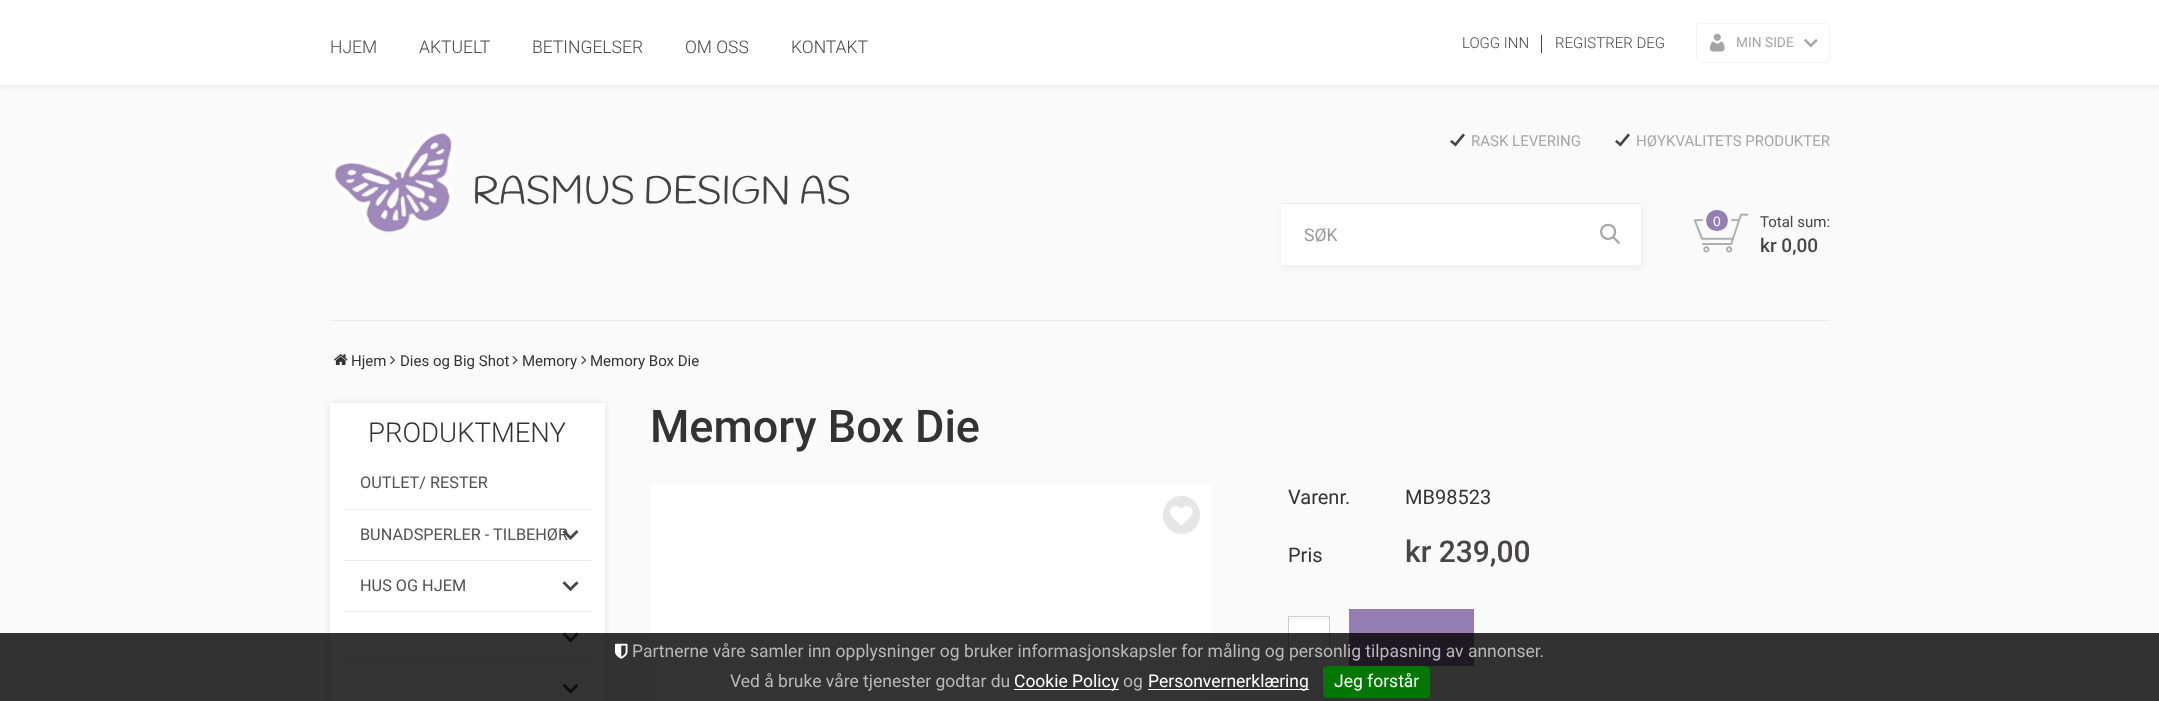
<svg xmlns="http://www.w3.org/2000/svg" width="2159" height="701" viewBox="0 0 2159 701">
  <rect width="100%" height="100%" fill="rgb(250,250,250)"/>
  <rect x="0" y="0" width="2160" height="85" fill="rgba(0,0,0,0.1)" filter="blur(3px)"/>
  <rect x="0" y="0" width="2159" height="85" fill="rgb(255,255,255)"/>
  <g font-family="Roboto" font-size="17.5" font-weight="300" fill="rgb(71,69,70)">
    <text x="330" y="53">HJEM</text>
    <text x="419" y="53">AKTUELT</text>
    <text x="532" y="53">BETINGELSER</text>
    <text x="685" y="53">OM OSS</text>
    <text x="791" y="53">KONTAKT</text>
  </g>
  <rect x="1541" y="35" width="1" height="18" fill="rgb(71,69,70)"/>
  <g font-family="Roboto" font-size="15" font-weight="300" fill="rgb(71,69,70)">
    <text x="1462" y="48">LOGG INN</text>
    <text x="1555" y="48">REGISTRER DEG</text>
  </g>
  <rect x="1696.5" y="23.5" width="133" height="39" rx="3.5" fill="none" stroke="rgb(244,244,244)"/>
  <image x="1709" y="33" width="16" height="19" href="pic1.png"/>
  <text x="1736" y="47" font-family="Roboto" font-size="13.75" fill="rgb(166,166,166)">MIN SIDE</text>
  <image x="1803" y="38" width="15" height="10" href="pic2.png"/>
  <rect x="330" y="320" width="1500" height="1" fill="rgb(234,234,234)"/>
  <image x="330" y="129" width="520" height="104" href="pic3.png"/>
  <image x="1450" y="133" width="15" height="14" href="pic4.png"/>
  <text x="1471" y="146" font-family="Roboto" font-size="15" fill="rgb(166,166,166)">RASK LEVERING</text>
  <image x="1615" y="133" width="15" height="14" href="pic4.png"/>
  <text x="1636" y="146" font-family="Roboto" font-size="15" fill="rgb(166,166,166)">HØYKVALITETS PRODUKTER</text>
  <rect x="1283" y="205" width="360" height="63" fill="rgba(0,0,0,0.05)" filter="blur(3px)"/>
  <rect x="1281" y="204" width="360" height="61" fill="rgb(255,255,255)"/>
  <rect x="1281" y="203" width="360" height="1" fill="rgb(236,236,236)"/>
  <text x="1304" y="241" font-family="Roboto" font-size="17.5" fill="rgb(153,153,153)">SØK</text>
  <image x="1600" y="223" width="20" height="21" href="pic5.png"/>
  <image x="1693" y="213" width="56" height="40" href="pic6.png"/>
  <rect x="1706" y="210" width="22" height="21" rx="10.5" fill="rgb(149,126,177)"/>
  <text x="1713" y="226" font-family="Liberation Sans" font-size="13.75" fill="rgb(255,255,255)">0</text>
  <text x="1760" y="227" font-family="Roboto" font-size="15" fill="rgb(71,69,70)">Total sum:</text>
  <text x="1760" y="252" font-family="Roboto" font-size="19" font-weight="500" fill="rgb(71,69,70)">kr 0,00</text>
  <image x="334" y="354" width="14" height="11" href="pic7.png"/>
  <text x="351" y="366" font-family="Roboto" font-size="15" fill="rgb(51,51,51)">Hjem</text>
  <image x="390" y="356" width="5" height="9" href="pic8.png"/>
  <text x="400" y="366" font-family="Roboto" font-size="15" fill="rgb(51,51,51)">Dies og Big Shot</text>
  <image x="512" y="356" width="6" height="9" href="pic9.png"/>
  <text x="522" y="366" font-family="Roboto" font-size="15" fill="rgb(51,51,51)">Memory</text>
  <image x="581" y="356" width="6" height="9" href="pic10.png"/>
  <text x="590" y="366" font-family="Roboto" font-size="15" fill="rgb(51,51,51)">Memory Box Die</text>
  <rect x="330" y="403" width="275" height="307" fill="rgba(0,0,0,0.1)" filter="blur(3px)"/>
  <rect x="330" y="403" width="275" height="298" fill="rgb(255,255,255)"/>
  <text x="368" y="442" font-family="Roboto" font-size="27.5" font-weight="300" fill="rgb(51,51,51)">PRODUKTMENY</text>
  <text x="360" y="488" font-family="Roboto" font-size="16.25" fill="rgb(82,82,82)">OUTLET/ RESTER</text>
  <rect x="344" y="509" width="247" height="1" fill="rgb(235,235,235)"/>
  <text x="360" y="540" font-family="Roboto" font-size="16.25" fill="rgb(82,82,82)">BUNADSPERLER - TILBEHØR</text>
  <image x="562" y="530" width="17" height="10" href="pic11.png"/>
  <rect x="344" y="560" width="247" height="1" fill="rgb(235,235,235)"/>
  <text x="360" y="591" font-family="Roboto" font-size="16.25" fill="rgb(82,82,82)">HUS OG HJEM</text>
  <image x="562" y="581" width="17" height="11" href="pic12.png"/>
  <rect x="344" y="611" width="247" height="1" fill="rgb(235,235,235)"/>
  <image x="562" y="632" width="17" height="11" href="pic13.png"/>
  <rect x="344" y="663" width="247" height="1" fill="rgb(235,235,235)"/>
  <image x="562" y="683" width="17" height="11" href="pic14.png"/>
  <text x="650" y="442" font-family="Roboto" font-size="45" font-weight="500" fill="rgb(51,51,51)">Memory Box Die</text>
  <rect x="650" y="484" width="562" height="217" fill="rgb(255,255,255)"/>
  <rect x="1163" y="496" width="37" height="38" rx="18.5" fill="rgb(230,230,230)"/>
  <image x="1170" y="506" width="23" height="20" href="pic15.png"/>
  <g font-family="Roboto" font-size="20" fill="rgb(51,51,51)">
    <text x="1288" y="504">Varenr.</text>
    <text x="1405" y="504">MB98523</text>
    <text x="1288" y="562">Pris</text>
  </g>
  <text x="1405" y="562" font-family="Roboto" font-size="30" font-weight="500" fill="rgb(71,69,70)">kr 239,00</text>
  <rect x="1289" y="617" width="40" height="41" fill="rgb(255,255,255)"/>
  <rect x="1289" y="618" width="40" height="1" fill="rgb(236,236,236)"/>
  <rect x="1288.5" y="616.5" width="41" height="42" fill="none" stroke="rgb(204,204,204)"/>
  <rect x="1349" y="609" width="125" height="57" fill="rgb(149,126,177)"/>
  <rect x="0" y="633" width="2159" height="68" fill="rgba(0,0,0,0.8)"/>
  <image x="615" y="643" width="13" height="16" href="pic16.png"/>
  <g font-family="Roboto" font-size="17.5" fill="rgb(184,184,184)">
    <text x="632" y="657">Partnerne våre samler inn opplysninger og bruker informasjonskapsler for måling og personlig tilpasning av annonser.</text>
    <text x="730" y="687">Ved å bruke våre tjenester godtar du</text>
  </g>
  <rect x="1014" y="689" width="105" height="1" fill="rgb(255,255,255)"/>
  <text x="1014" y="687" font-family="Roboto" font-size="17.5" fill="rgb(255,255,255)">Cookie Policy</text>
  <text x="1123" y="687" font-family="Roboto" font-size="17.5" fill="rgb(184,184,184)">og</text>
  <rect x="1148" y="689" width="161" height="1" fill="rgb(255,255,255)"/>
  <text x="1148" y="687" font-family="Roboto" font-size="17.5" fill="rgb(255,255,255)">Personvernerklæring</text>
  <rect x="1323" y="666" width="107" height="32" rx="4" fill="rgb(0,119,0)"/>
  <text x="1334" y="687" font-family="Roboto" font-size="17.5" fill="rgb(255,255,255)">Jeg forstår</text>
</svg>
